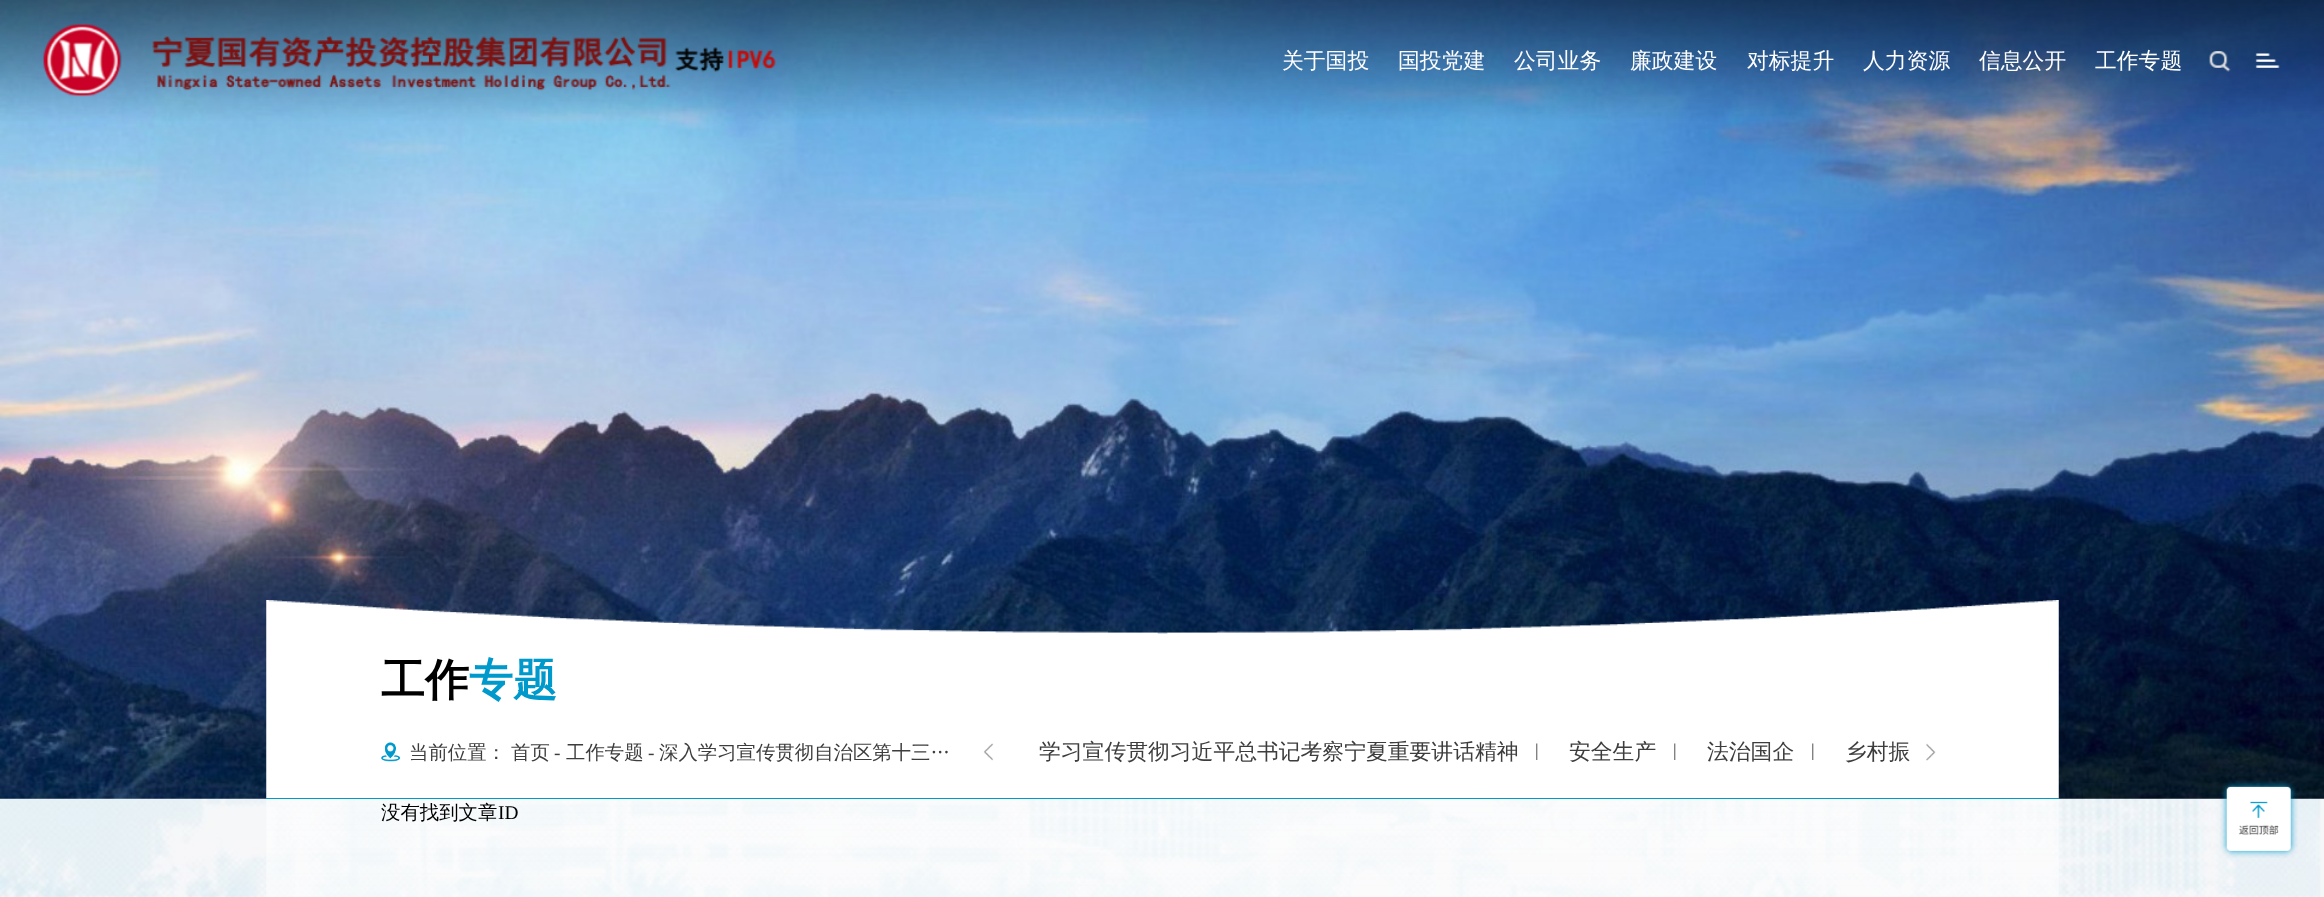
<svg xmlns="http://www.w3.org/2000/svg" width="2324" height="897" viewBox="0 0 2324 897">
  <rect width="100%" height="100%" fill="rgb(245,246,248)"/>
  <image x="0" y="798" width="2321" height="99" href="pic5.png"/>
  <image x="0" y="0" width="2324" height="799" href="pic1.png"/>
  <image x="43" y="24" width="733" height="73" href="pic2.png"/>
  <g font-family="WenQuanYi Zen Hei" font-size="21.8" font-weight="500" fill="rgb(255,255,255)">
    <text x="1282" y="68">关于国投</text>
    <text x="1398" y="68">国投党建</text>
    <text x="1514" y="68">公司业务</text>
    <text x="1630" y="68">廉政建设</text>
    <text x="1747" y="68">对标提升</text>
    <text x="1863" y="68">人力资源</text>
    <text x="1979" y="68">信息公开</text>
    <text x="2095" y="68">工作专题</text>
  </g>
  <image x="2209" y="51" width="22" height="21" href="pic3.png"/>
  <image x="2255" y="53" width="25" height="15" href="pic4.png"/>
  <image x="266" y="600" width="1793" height="198" href="pic6.png"/>
  <rect x="266" y="798" width="1793" height="1" fill="rgb(0,153,204)"/>
  <text x="381" y="695" font-family="WenQuanYi Zen Hei" font-size="44" font-weight="bold" fill="rgb(0,0,0)">工作</text>
  <text x="469" y="695" font-family="WenQuanYi Zen Hei" font-size="44" font-weight="bold" fill="rgb(0,153,204)">专题</text>
  <image x="381" y="742" width="19" height="20" href="pic7.png"/>
  <g font-family="WenQuanYi Zen Hei" font-size="19.4" font-weight="500" fill="rgb(61,61,61)">
    <text x="409" y="759">当前位置：</text>
    <text x="511" y="759">首页</text>
  </g>
  <text x="554" y="759" font-family="Liberation Serif" font-size="19.4" fill="rgb(61,61,61)">-</text>
  <text x="566" y="759" font-family="WenQuanYi Zen Hei" font-size="19.4" font-weight="500" fill="rgb(61,61,61)">工作专题</text>
  <text x="648" y="759" font-family="Liberation Serif" font-size="19.4" fill="rgb(61,61,61)">-</text>
  <text x="659" y="759" font-family="WenQuanYi Zen Hei" font-size="19.4" font-weight="500" fill="rgb(61,61,61)">深入学习宣传贯彻自治区第十三…</text>
  <image x="983" y="743" width="11" height="18" href="pic8.png"/>
  <text x="1039" y="759" font-family="WenQuanYi Zen Hei" font-size="21.8" font-weight="500" fill="rgb(61,61,61)">学习宣传贯彻习近平总书记考察宁夏重要讲话精神</text>
  <text x="1535" y="756" font-family="Liberation Serif" font-size="18" fill="rgb(61,61,61)">|</text>
  <text x="1569" y="759" font-family="WenQuanYi Zen Hei" font-size="21.8" font-weight="500" fill="rgb(61,61,61)">安全生产</text>
  <text x="1673" y="756" font-family="Liberation Serif" font-size="18" fill="rgb(61,61,61)">|</text>
  <text x="1707" y="759" font-family="WenQuanYi Zen Hei" font-size="21.8" font-weight="500" fill="rgb(61,61,61)">法治国企</text>
  <text x="1811" y="756" font-family="Liberation Serif" font-size="18" fill="rgb(61,61,61)">|</text>
  <text x="1845" y="759" font-family="WenQuanYi Zen Hei" font-size="21.8" font-weight="500" fill="rgb(61,61,61)">乡村振</text>
  <image x="1926" y="743" width="10" height="18" href="pic9.png"/>
  <image x="266" y="799" width="1793" height="98" href="pic10.png"/>
  <text x="381" y="819" font-family="WenQuanYi Zen Hei" font-size="19.4" font-weight="500" fill="rgb(0,0,0)">没有找到文章</text>
  <text x="498" y="819" font-family="Liberation Serif" font-size="19.4" fill="rgb(0,0,0)">ID</text>
  <image x="2220" y="780" width="78" height="78" href="pic11.png"/>
</svg>
